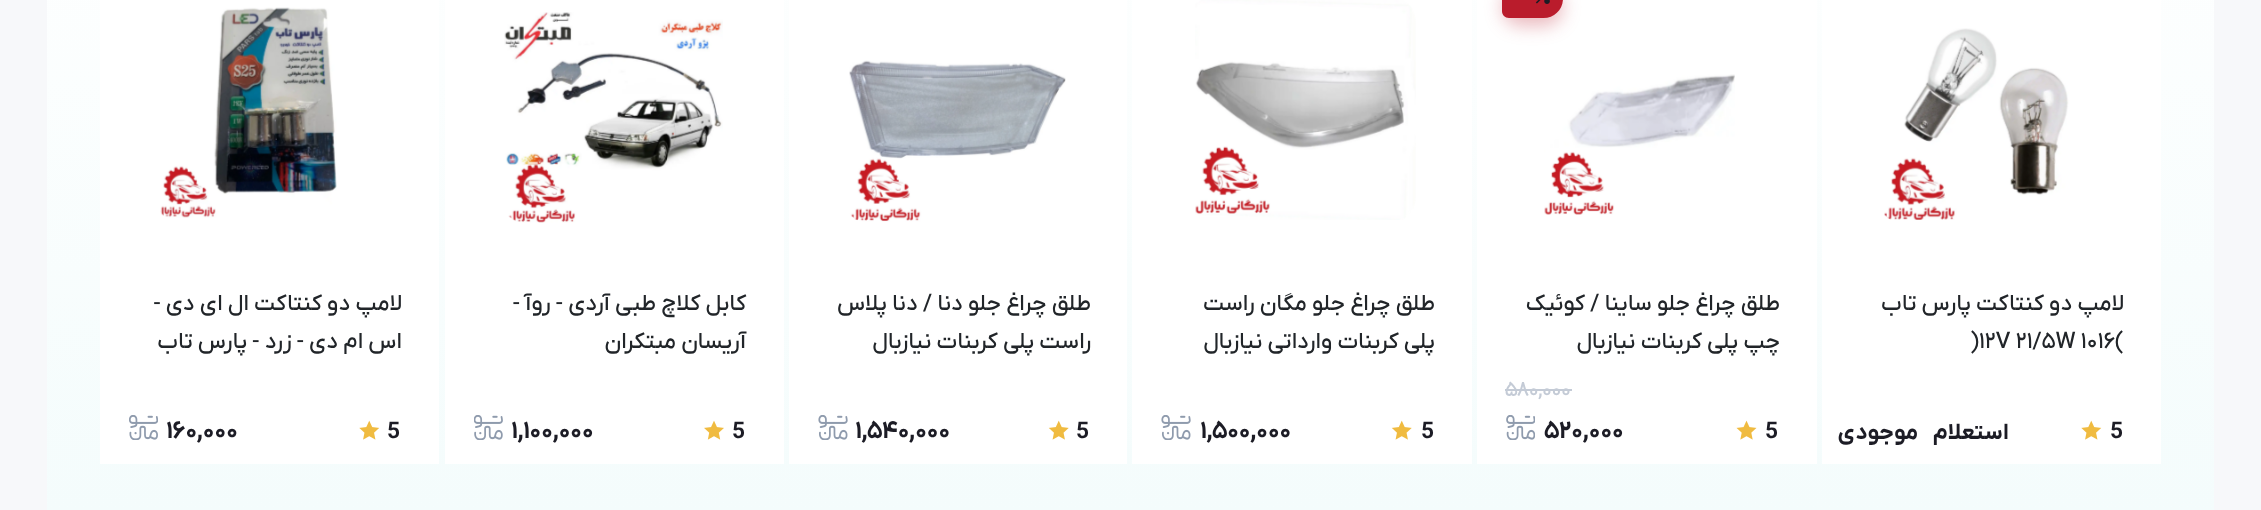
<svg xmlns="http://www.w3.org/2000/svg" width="2261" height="510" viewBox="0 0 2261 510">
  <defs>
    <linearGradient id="g1" gradientUnits="userSpaceOnUse" x1="1131" y1="-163" x2="1131" y2="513"><stop offset="0" stop-color="rgb(255,255,255)"/><stop offset="1" stop-color="rgb(244,252,252)"/></linearGradient>
  </defs>
  <rect width="100%" height="100%" fill="rgb(247,248,250)"/>
  <rect x="47" y="0" width="2167" height="510" fill="url(#g1)"/>
  <rect x="1822" y="0" width="339" height="464" fill="rgb(255,255,255)"/>
  <image x="1884" y="28" width="185" height="192" href="pic1.png"/>
  <text x="2124" y="310" font-family="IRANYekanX" font-size="22.75" font-weight="500" direction="rtl" fill="rgb(33,37,41)">لامپ دو کنتاکت پارس تاب</text>
  <text x="2115" y="348" font-family="IRANYekanX" font-size="22.75" font-weight="500" fill="rgb(33,37,41)">(</text>
  <text x="1979" y="348" font-family="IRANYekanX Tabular" font-size="22.75" font-weight="500" fill="rgb(33,37,41)">12V 21/5W 1016</text>
  <text x="1970" y="348" font-family="IRANYekanX" font-size="22.75" font-weight="500" fill="rgb(33,37,41)">)</text>
  <text x="2110" y="438" font-family="IRANYekanX" font-size="22.75" font-weight="bold" fill="rgb(28,28,37)">5</text>
  <image x="2081" y="420" width="21" height="20" href="pic2.png"/>
  <text x="2009" y="439" word-spacing="10" font-family="IRANYekanX" font-size="22.75" font-weight="bold" letter-spacing="-0.9" direction="rtl" fill="rgb(28,28,37)">استعلام موجودی</text>
  <rect x="1477" y="0" width="340" height="464" fill="rgb(255,255,255)"/>
  <rect x="1502" y="-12" width="61" height="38" rx="19" fill="rgba(186,28,44,0.3)" filter="blur(9px)"/>
  <path d="M1521.5-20H1543.5C1554.5-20 1563-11.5 1563-.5V-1.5C1563 9.5 1554.5 18 1543.5 18H1509C1505 18 1502 15 1502 11V-.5C1502-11.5 1510.5-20 1521.5-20Z" fill="rgb(186,28,44)"/>
  <image x="1535" y="0" width="15" height="4" href="pic3.png"/>
  <image x="1544" y="74" width="191" height="141" href="pic4.png"/>
  <g font-family="IRANYekanX" font-size="22.75" font-weight="500" direction="rtl" fill="rgb(33,37,41)">
    <text>
      <tspan x="1780" y="310">طلق چراغ جلو ساینا / کوئیک</tspan>
      <tspan x="1780" y="348">چپ پلی کربنات نیازبال</tspan>
    </text>
  </g>
  <text x="1765" y="438" font-family="IRANYekanX" font-size="22.75" font-weight="bold" fill="rgb(28,28,37)">5</text>
  <image x="1736" y="420" width="21" height="20" href="pic5.png"/>
  <text x="1505" y="396" font-family="IRANYekanX Tabular" font-size="21" font-weight="500" letter-spacing="-0.9" fill="rgb(196,203,214)">580,000</text>
  <rect x="1505" y="389" width="67" height="2" fill="rgb(196,203,214)"/>
  <text x="1544" y="438" font-family="IRANYekanX Tabular" font-size="24.5" font-weight="bold" letter-spacing="-0.9" fill="rgb(28,28,37)">520,000</text>
  <image x="1506" y="415" width="29" height="25" href="pic6.png"/>
  <rect x="1132" y="0" width="340" height="464" fill="rgb(255,255,255)"/>
  <image x="1195" y="0" width="221" height="220" href="pic7.png"/>
  <g font-family="IRANYekanX" font-size="22.75" font-weight="500" direction="rtl" fill="rgb(33,37,41)">
    <text>
      <tspan x="1435" y="310">طلق چراغ جلو مگان راست</tspan>
      <tspan x="1435" y="348">پلی کربنات وارداتی نیازبال</tspan>
    </text>
  </g>
  <text x="1421" y="438" font-family="IRANYekanX" font-size="22.75" font-weight="bold" fill="rgb(28,28,37)">5</text>
  <image x="1391" y="420" width="21" height="20" href="pic8.png"/>
  <text x="1200" y="438" font-family="IRANYekanX Tabular" font-size="24.5" font-weight="bold" letter-spacing="-0.9" fill="rgb(28,28,37)">1,500,000</text>
  <image x="1161" y="415" width="30" height="25" href="pic9.png"/>
  <rect x="789" y="0" width="338" height="464" fill="rgb(255,255,255)"/>
  <image x="849" y="60" width="217" height="162" href="pic10.png"/>
  <g font-family="IRANYekanX" font-size="22.75" font-weight="500" direction="rtl" fill="rgb(33,37,41)">
    <text>
      <tspan x="1091" y="310">طلق چراغ جلو دنا / دنا پلاس</tspan>
      <tspan x="1091" y="348">راست پلی کربنات نیازبال</tspan>
    </text>
  </g>
  <text x="1076" y="438" font-family="IRANYekanX" font-size="22.75" font-weight="bold" fill="rgb(28,28,37)">5</text>
  <image x="1048" y="420" width="21" height="20" href="pic8.png"/>
  <text x="855" y="438" font-family="IRANYekanX Tabular" font-size="24.5" font-weight="bold" letter-spacing="-0.9" fill="rgb(28,28,37)">1,540,000</text>
  <image x="818" y="415" width="30" height="25" href="pic9.png"/>
  <rect x="445" y="0" width="339" height="464" fill="rgb(255,255,255)"/>
  <image x="504" y="12" width="219" height="211" href="pic11.png"/>
  <g font-family="IRANYekanX" font-size="22.75" font-weight="500" direction="rtl" fill="rgb(33,37,41)">
    <text>
      <tspan x="746" y="310">کابل کلاچ طبی آردی - روآ -</tspan>
      <tspan x="746" y="348">آریسان مبتکران</tspan>
    </text>
  </g>
  <text x="732" y="438" font-family="IRANYekanX" font-size="22.75" font-weight="bold" fill="rgb(28,28,37)">5</text>
  <image x="704" y="420" width="20" height="20" href="pic12.png"/>
  <text x="511" y="438" font-family="IRANYekanX Tabular" font-size="24.5" font-weight="bold" letter-spacing="-0.9" fill="rgb(28,28,37)">1,100,000</text>
  <image x="474" y="415" width="29" height="25" href="pic13.png"/>
  <rect x="100" y="0" width="339" height="464" fill="rgb(255,255,255)"/>
  <image x="160" y="7" width="177" height="211" href="pic14.png"/>
  <g font-family="IRANYekanX" font-size="22.75" font-weight="500" direction="rtl" fill="rgb(33,37,41)">
    <text>
      <tspan x="402" y="310">لامپ دو کنتاکت ال ای دی -</tspan>
      <tspan x="402" y="348">اس ام دی - زرد - پارس تاب</tspan>
    </text>
  </g>
  <text x="387" y="438" font-family="IRANYekanX" font-size="22.75" font-weight="bold" fill="rgb(28,28,37)">5</text>
  <image x="359" y="420" width="21" height="20" href="pic2.png"/>
  <text x="166" y="438" font-family="IRANYekanX Tabular" font-size="24.5" font-weight="bold" letter-spacing="-0.9" fill="rgb(28,28,37)">160,000</text>
  <image x="129" y="415" width="29" height="25" href="pic15.png"/>
</svg>
